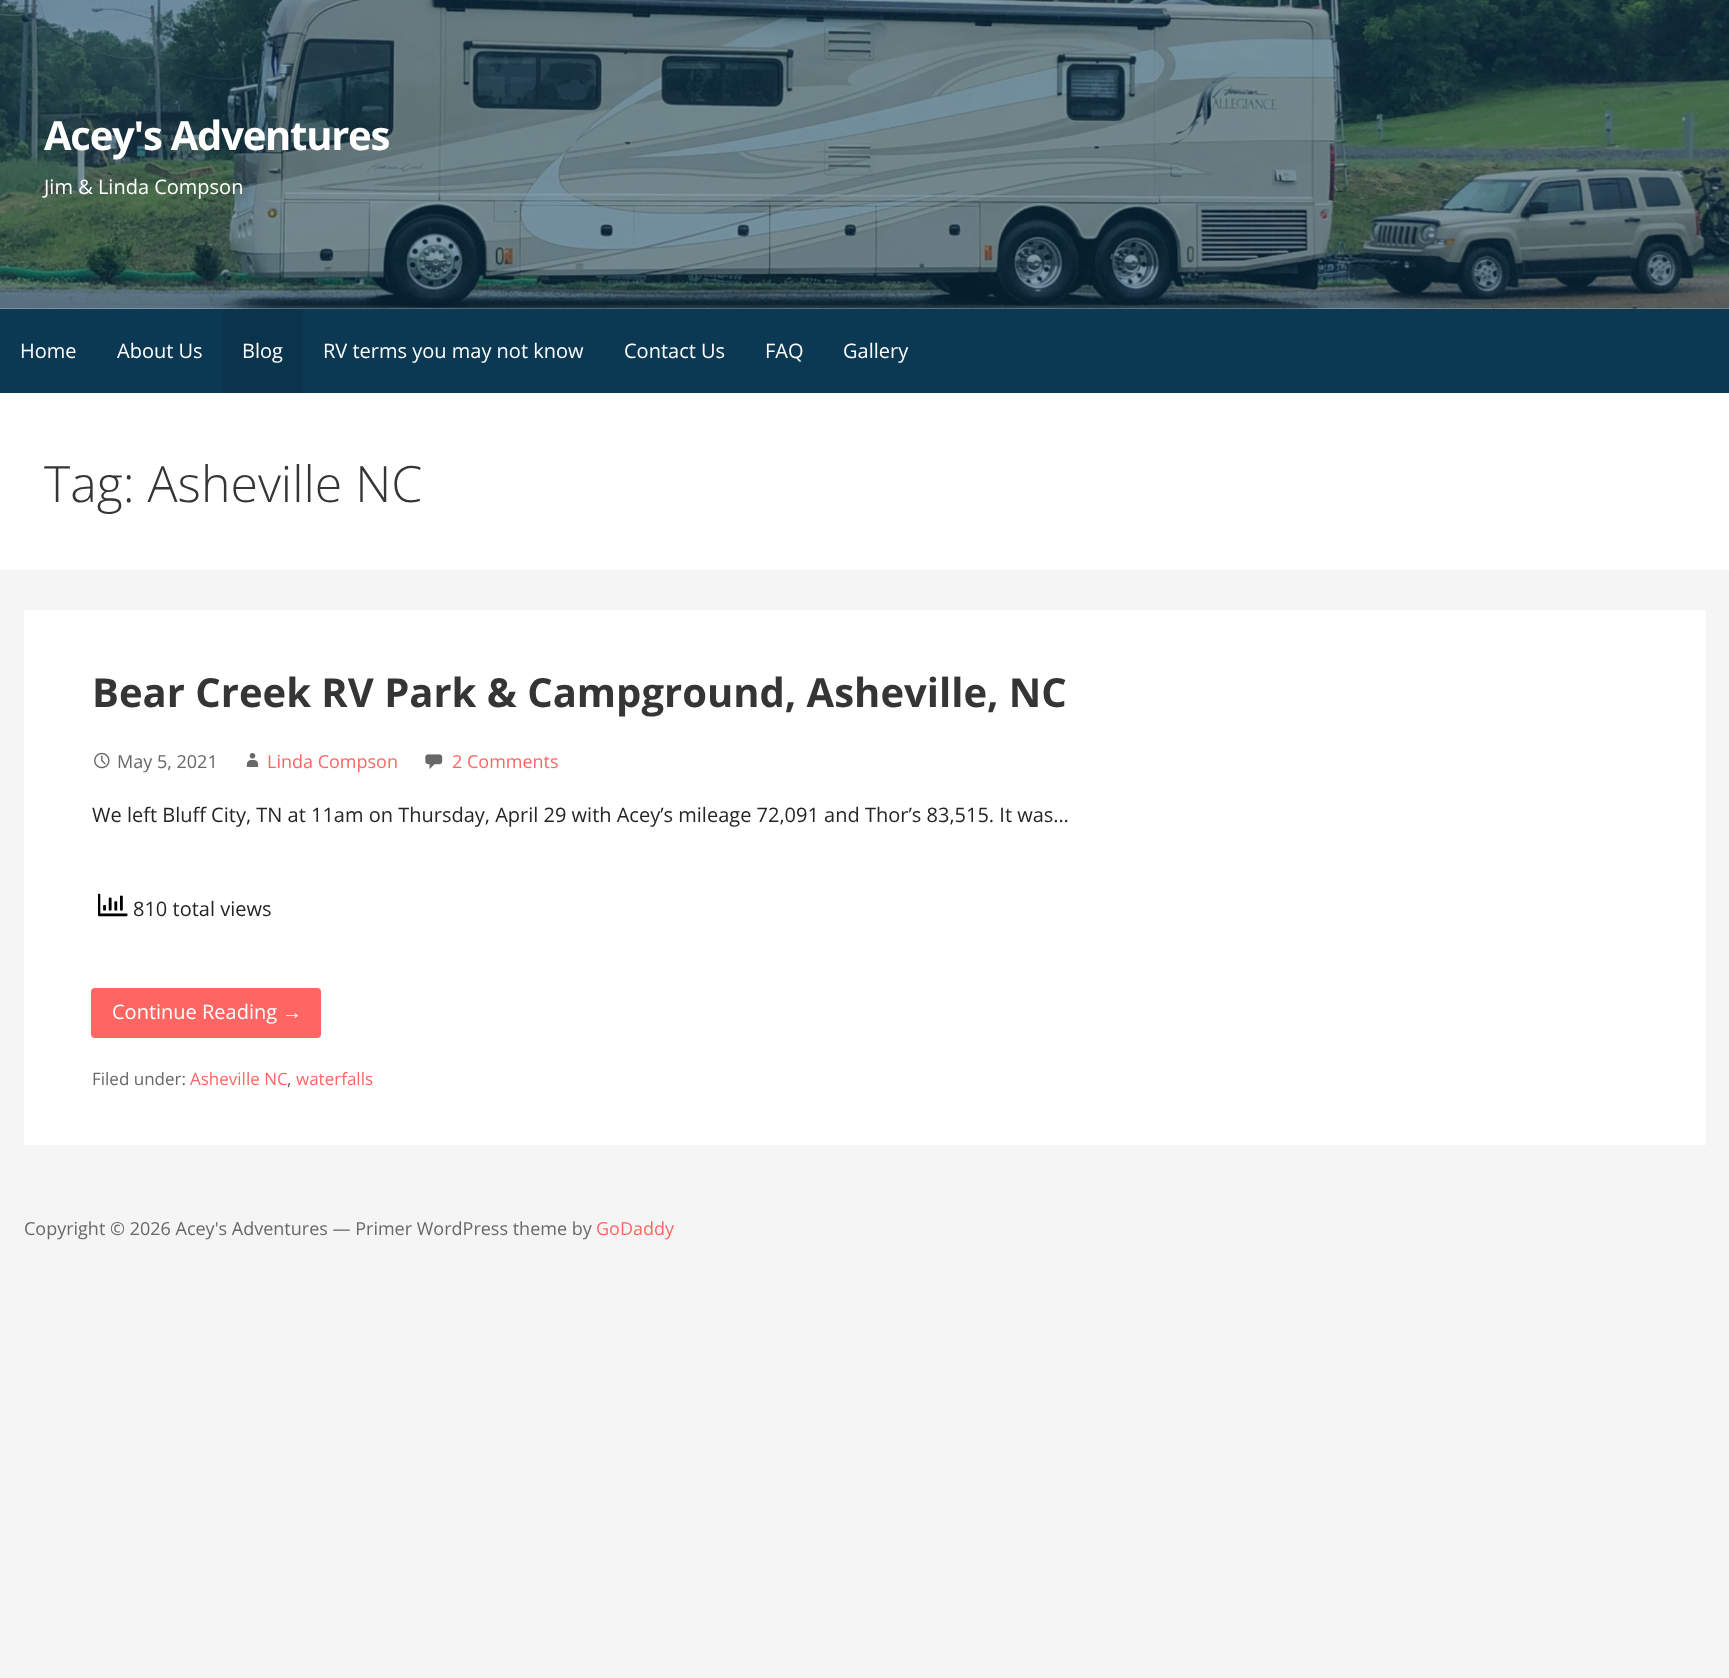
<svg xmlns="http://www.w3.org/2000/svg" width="1729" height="1678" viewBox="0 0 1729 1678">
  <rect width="100%" height="100%" fill="rgb(245,245,245)"/>
  <image x="0" y="0" width="1729" height="309" href="pic1.png"/>
  <text x="44" y="150" font-family="Open Sans" font-size="40" font-weight="bold" letter-spacing="-1.25" fill="rgb(255,255,255)">Acey's Adventures</text>
  <text x="44" y="194" font-family="Open Sans" font-size="20" fill="rgb(255,255,255)">Jim &amp; Linda Compson</text>
  <rect x="0" y="309" width="1729" height="84" fill="rgb(11,57,84)"/>
  <g font-family="Open Sans" font-size="20" fill="rgb(255,255,255)">
    <text x="20" y="358">Home</text>
    <text x="117" y="358">About Us</text>
  </g>
  <rect x="223" y="309" width="80" height="84" fill="rgb(10,51,76)"/>
  <g font-family="Open Sans" font-size="20" fill="rgb(255,255,255)">
    <text x="242" y="358">Blog</text>
    <text x="323" y="358">RV terms you may not know</text>
    <text x="624" y="358">Contact Us</text>
    <text x="765" y="358">FAQ</text>
    <text x="843" y="358">Gallery</text>
  </g>
  <rect x="0" y="393" width="1729" height="177" fill="rgb(255,255,255)"/>
  <text x="44" y="502" font-family="Open Sans" font-size="50" font-weight="300" fill="rgb(53,53,53)">Tag: Asheville NC</text>
  <rect x="24" y="610" width="1682" height="535" fill="rgb(255,255,255)"/>
  <text x="92" y="707" font-family="Open Sans" font-size="40" font-weight="bold" fill="rgb(53,53,53)">Bear Creek RV Park &amp; Campground, Asheville, NC</text>
  <image x="94" y="752" width="16" height="17" href="pic2.png"/>
  <text x="117" y="768" font-family="Open Sans" font-size="18" fill="rgb(104,104,104)">May 5, 2021</text>
  <image x="246" y="753" width="13" height="14" href="pic3.png"/>
  <text x="267" y="768" font-family="Open Sans" font-size="18" fill="rgb(255,102,99)">Linda Compson</text>
  <image x="425" y="754" width="18" height="15" href="pic4.png"/>
  <text x="452" y="768" font-family="Open Sans" font-size="18" fill="rgb(255,102,99)">2 Comments</text>
  <text x="92" y="822" font-family="Open Sans" font-size="20" fill="rgb(37,37,37)">We left Bluff City, TN at 11am on Thursday, April 29 with Acey’s mileage 72,091 and Thor’s 83,515. It was…</text>
  <image x="98" y="893" width="30" height="24" href="pic5.png"/>
  <text x="133" y="916" font-family="Open Sans" font-size="20" fill="rgb(37,37,37)">810 total views</text>
  <rect x="91" y="988" width="230" height="50" rx="4" fill="rgb(255,102,99)"/>
  <text x="112" y="1019" font-family="Open Sans" font-size="20" fill="rgb(255,255,255)">Continue Reading</text>
  <text x="282" y="1019" font-family="Liberation Sans" font-size="20" fill="rgb(255,255,255)">→</text>
  <text x="92" y="1085" font-family="Open Sans" font-size="17" fill="rgb(104,104,104)">Filed under:</text>
  <text x="190" y="1085" font-family="Open Sans" font-size="17" fill="rgb(255,102,99)">Asheville NC</text>
  <text x="287" y="1085" font-family="Open Sans" font-size="17" fill="rgb(104,104,104)">,</text>
  <text x="296" y="1085" font-family="Open Sans" font-size="17" fill="rgb(255,102,99)">waterfalls</text>
  <text x="24" y="1235" font-family="Open Sans" font-size="18" fill="rgb(104,104,104)">Copyright © 2026 Acey's Adventures — Primer WordPress theme by</text>
  <text x="596" y="1235" font-family="Open Sans" font-size="18" fill="rgb(255,102,99)">GoDaddy</text>
</svg>
